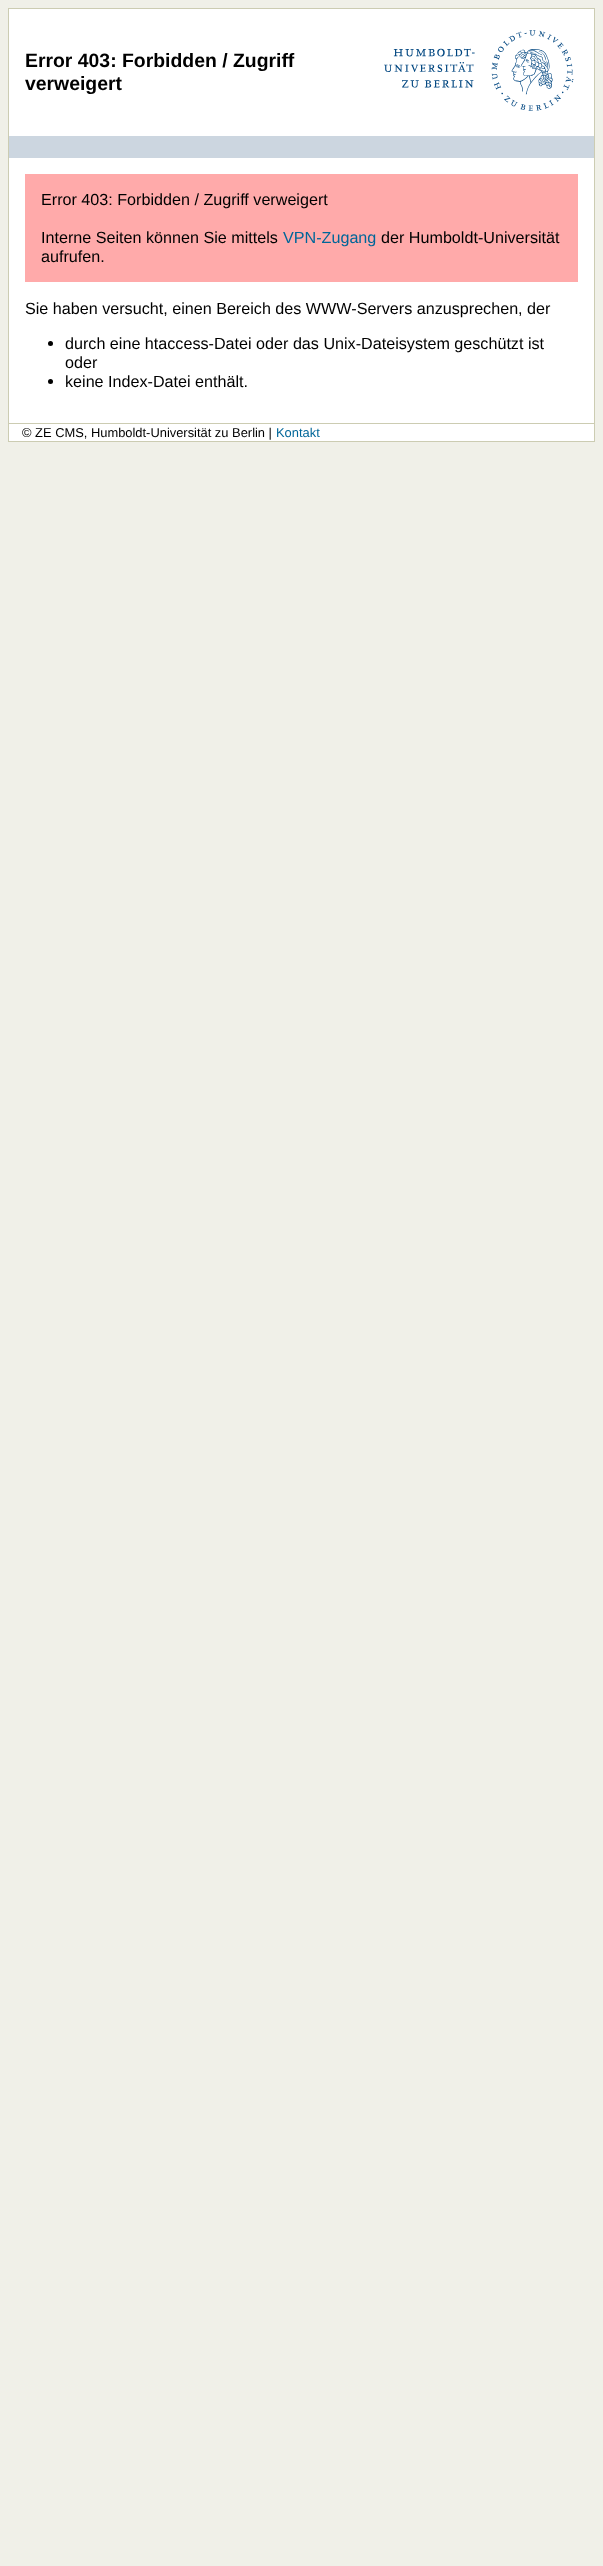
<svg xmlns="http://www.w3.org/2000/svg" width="603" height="2566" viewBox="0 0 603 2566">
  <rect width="100%" height="100%" fill="rgb(240,240,232)"/>
  <rect x="8.5" y="8.5" width="586" height="433" fill="rgb(255,255,255)" stroke="rgb(204,204,178)"/>
  <g font-family="Liberation Sans" font-size="19.4" font-weight="bold" fill="rgb(0,0,0)">
    <text>
      <tspan x="25" y="67">Error 403: Forbidden / Zugriff</tspan>
      <tspan x="25" y="90">verweigert</tspan>
    </text>
  </g>
  <image x="384" y="30" width="190" height="81" href="pic1.png"/>
  <rect x="9" y="136" width="585" height="22" fill="rgb(204,214,224)"/>
  <rect x="25" y="174" width="553" height="108" fill="rgb(255,170,170)"/>
  <g font-family="Liberation Sans" font-size="16.15" fill="rgb(0,0,0)">
    <text x="41" y="205">Error 403: Forbidden / Zugriff verweigert</text>
    <text x="41" y="243">Interne Seiten können Sie mittels</text>
  </g>
  <text x="283" y="243" font-family="Liberation Sans" font-size="16.15" fill="rgb(0,102,153)">VPN-Zugang</text>
  <g font-family="Liberation Sans" font-size="16.15" fill="rgb(0,0,0)">
    <text x="381" y="243">der Humboldt-Universität</text>
    <text x="41" y="262">aufrufen.</text>
    <text x="25" y="314">Sie haben versucht, einen Bereich des WWW-Servers anzusprechen, der</text>
  </g>
  <circle cx="50.5" cy="343.5" r="2.5" fill="rgb(0,0,0)"/>
  <g font-family="Liberation Sans" font-size="16.15" fill="rgb(0,0,0)">
    <text>
      <tspan x="65" y="349">durch eine htaccess-Datei oder das Unix-Dateisystem geschützt ist</tspan>
      <tspan x="65" y="368">oder</tspan>
    </text>
  </g>
  <circle cx="50.5" cy="381.5" r="2.5" fill="rgb(0,0,0)"/>
  <text x="65" y="387" font-family="Liberation Sans" font-size="16.15" fill="rgb(0,0,0)">keine Index-Datei enthält.</text>
  <rect x="9" y="423" width="585" height="1" fill="rgb(204,204,178)"/>
  <text x="22" y="437" font-family="Liberation Sans" font-size="12.9" fill="rgb(0,0,0)">© ZE CMS, Humboldt-Universität zu Berlin |</text>
  <text x="276" y="437" font-family="Liberation Sans" font-size="12.9" fill="rgb(0,102,153)">Kontakt</text>
</svg>
